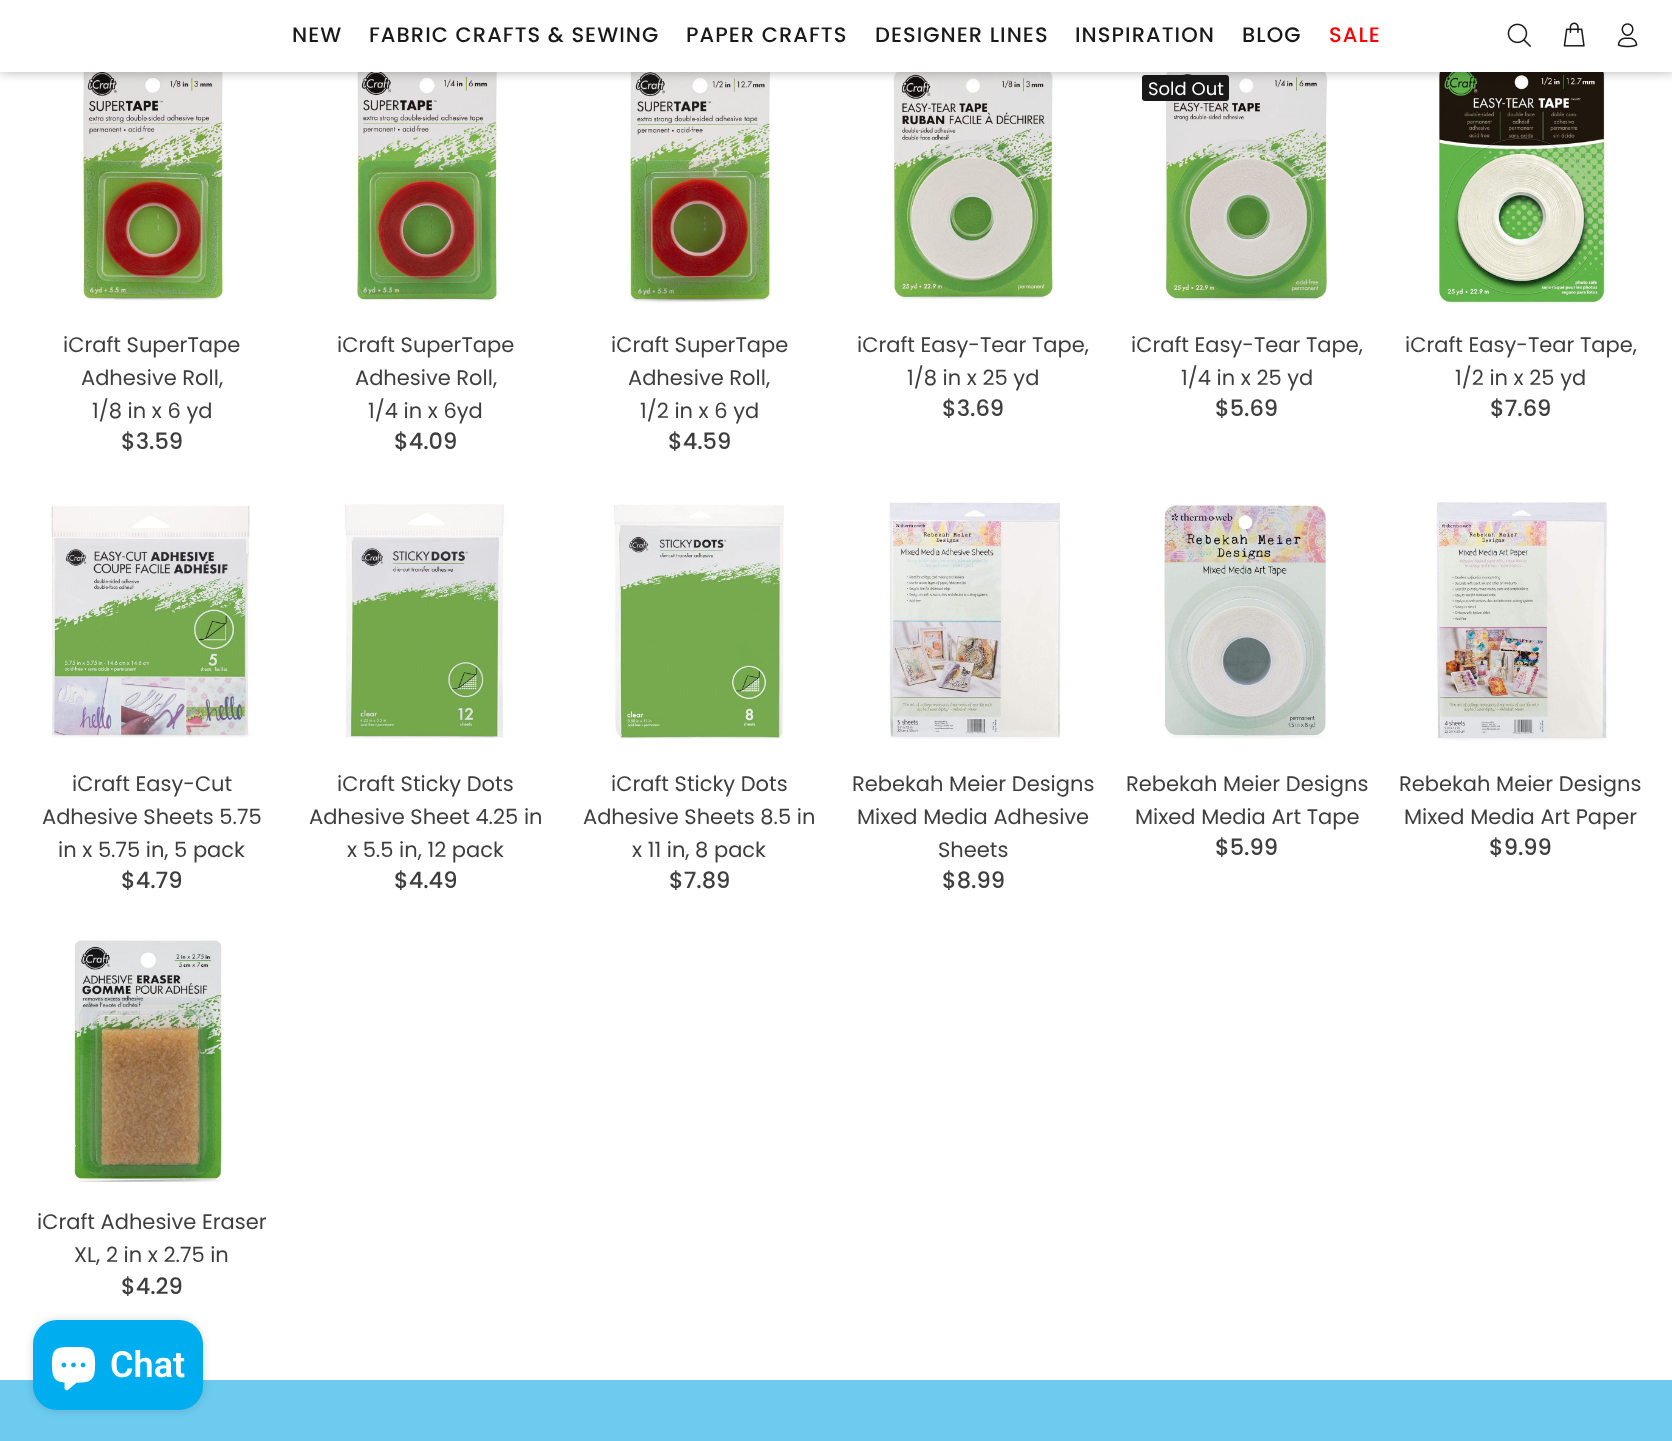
<svg xmlns="http://www.w3.org/2000/svg" width="1672" height="1441" viewBox="0 0 1672 1441">
  <rect width="100%" height="100%" fill="rgb(255,255,255)"/>
  <image x="81" y="72" width="143" height="229" href="pic4.png"/>
  <image x="357" y="72" width="142" height="229" href="pic5.png"/>
  <image x="628" y="72" width="144" height="231" href="pic6.png"/>
  <image x="893" y="72" width="162" height="228" href="pic7.png"/>
  <image x="1164" y="72" width="166" height="229" href="pic8.png"/>
  <rect x="1142" y="75" width="87" height="26" rx="3" fill="rgb(25,25,25)"/>
  <image x="1438" y="72" width="171" height="233" href="pic9.png"/>
  <rect x="0" y="0" width="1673" height="72" fill="rgba(0,0,0,0.3)" filter="blur(6px)"/>
  <rect x="0" y="0" width="1672" height="72" fill="rgb(255,255,255)"/>
  <g font-family="Poppins" font-size="21" font-weight="500" letter-spacing="1.05" fill="rgb(25,25,25)">
    <text x="292" y="42">NEW</text>
    <text x="369" y="42">FABRIC CRAFTS &amp; SEWING</text>
    <text x="686" y="42">PAPER CRAFTS</text>
    <text x="875" y="42">DESIGNER LINES</text>
    <text x="1075" y="42">INSPIRATION</text>
    <text x="1242" y="42">BLOG</text>
  </g>
  <text x="1329" y="42" font-family="Poppins" font-size="21" font-weight="500" letter-spacing="1.05" fill="rgb(255,0,0)">SALE</text>
  <image x="1507" y="23" width="24" height="24" href="pic1.png"/>
  <image x="1563" y="22" width="22" height="25" href="pic2.png"/>
  <image x="1617" y="23" width="21" height="25" href="pic3.png"/>
  <g font-family="Poppins" font-size="21" fill="rgb(62,62,62)">
    <text x="63" y="352">iCraft SuperTape</text>
    <text x="81" y="385">Adhesive Roll,</text>
    <text x="92" y="418">1/8 in x 6 yd</text>
  </g>
  <text x="121" y="449" font-family="Poppins" font-size="22.5" font-weight="500" fill="rgb(62,62,62)">$3.59</text>
  <g font-family="Poppins" font-size="21" fill="rgb(62,62,62)">
    <text x="337" y="352">iCraft SuperTape</text>
    <text x="355" y="385">Adhesive Roll,</text>
    <text x="368" y="418">1/4 in x 6yd</text>
  </g>
  <text x="394" y="449" font-family="Poppins" font-size="22.5" font-weight="500" fill="rgb(62,62,62)">$4.09</text>
  <g font-family="Poppins" font-size="21" fill="rgb(62,62,62)">
    <text x="611" y="352">iCraft SuperTape</text>
    <text x="628" y="385">Adhesive Roll,</text>
    <text x="640" y="418">1/2 in x 6 yd</text>
  </g>
  <text x="668" y="449" font-family="Poppins" font-size="22.5" font-weight="500" fill="rgb(62,62,62)">$4.59</text>
  <g font-family="Poppins" font-size="21" fill="rgb(62,62,62)">
    <text x="857" y="352">iCraft Easy-Tear Tape,</text>
    <text x="907" y="385">1/8 in x 25 yd</text>
  </g>
  <text x="942" y="416" font-family="Poppins" font-size="22.5" font-weight="500" fill="rgb(62,62,62)">$3.69</text>
  <text x="1148" y="95" font-family="Poppins" font-size="18" fill="rgb(255,255,255)">Sold Out</text>
  <g font-family="Poppins" font-size="21" fill="rgb(62,62,62)">
    <text x="1131" y="352">iCraft Easy-Tear Tape,</text>
    <text x="1181" y="385">1/4 in x 25 yd</text>
  </g>
  <text x="1215" y="416" font-family="Poppins" font-size="22.5" font-weight="500" fill="rgb(62,62,62)">$5.69</text>
  <g font-family="Poppins" font-size="21" fill="rgb(62,62,62)">
    <text x="1405" y="352">iCraft Easy-Tear Tape,</text>
    <text x="1455" y="385">1/2 in x 25 yd</text>
  </g>
  <text x="1490" y="416" font-family="Poppins" font-size="22.5" font-weight="500" fill="rgb(62,62,62)">$7.69</text>
  <image x="50" y="505" width="200" height="233" href="pic10.png"/>
  <g font-family="Poppins" font-size="21" fill="rgb(62,62,62)">
    <text x="72" y="791">iCraft Easy-Cut</text>
    <text x="42" y="824">Adhesive Sheets 5.75</text>
    <text x="58" y="857">in x 5.75 in, 5 pack</text>
  </g>
  <text x="121" y="888" font-family="Poppins" font-size="22.5" font-weight="500" fill="rgb(62,62,62)">$4.79</text>
  <image x="345" y="504" width="159" height="235" href="pic11.png"/>
  <g font-family="Poppins" font-size="21" fill="rgb(62,62,62)">
    <text x="337" y="791">iCraft Sticky Dots</text>
    <text x="309" y="824">Adhesive Sheet 4.25 in</text>
    <text x="347" y="857">x 5.5 in, 12 pack</text>
  </g>
  <text x="394" y="888" font-family="Poppins" font-size="22.5" font-weight="500" fill="rgb(62,62,62)">$4.49</text>
  <image x="614" y="504" width="170" height="235" href="pic12.png"/>
  <g font-family="Poppins" font-size="21" fill="rgb(62,62,62)">
    <text x="611" y="791">iCraft Sticky Dots</text>
    <text x="583" y="824">Adhesive Sheets 8.5 in</text>
    <text x="632" y="857">x 11 in, 8 pack</text>
  </g>
  <text x="669" y="888" font-family="Poppins" font-size="22.5" font-weight="500" fill="rgb(62,62,62)">$7.89</text>
  <image x="888" y="501" width="173" height="238" href="pic13.png"/>
  <g font-family="Poppins" font-size="21" fill="rgb(62,62,62)">
    <text x="852" y="791">Rebekah Meier Designs</text>
    <text x="857" y="824">Mixed Media Adhesive</text>
    <text x="938" y="857">Sheets</text>
  </g>
  <text x="942" y="888" font-family="Poppins" font-size="22.5" font-weight="500" fill="rgb(62,62,62)">$8.99</text>
  <image x="1164" y="504" width="163" height="235" href="pic14.png"/>
  <g font-family="Poppins" font-size="21" fill="rgb(62,62,62)">
    <text x="1126" y="791">Rebekah Meier Designs</text>
    <text x="1135" y="824">Mixed Media Art Tape</text>
  </g>
  <text x="1215" y="855" font-family="Poppins" font-size="22.5" font-weight="500" fill="rgb(62,62,62)">$5.99</text>
  <image x="1435" y="500" width="174" height="241" href="pic15.png"/>
  <g font-family="Poppins" font-size="21" fill="rgb(62,62,62)">
    <text x="1399" y="791">Rebekah Meier Designs</text>
    <text x="1404" y="824">Mixed Media Art Paper</text>
  </g>
  <text x="1489" y="855" font-family="Poppins" font-size="22.5" font-weight="500" fill="rgb(62,62,62)">$9.99</text>
  <image x="74" y="940" width="151" height="242" href="pic16.png"/>
  <g font-family="Poppins" font-size="21" fill="rgb(62,62,62)">
    <text x="37" y="1229">iCraft Adhesive Eraser</text>
    <text x="74" y="1262">XL, 2 in x 2.75 in</text>
  </g>
  <text x="121" y="1294" font-family="Poppins" font-size="22.5" font-weight="500" fill="rgb(62,62,62)">$4.29</text>
  <rect x="0" y="1380" width="1672" height="61" fill="rgb(108,203,239)"/>
  <rect x="33" y="1320" width="170" height="90" rx="24" fill="rgba(0,0,0,0.15)" filter="blur(4px)"/>
  <rect x="33" y="1320" width="170" height="90" rx="24" fill="rgb(0,174,239)"/>
  <image x="51" y="1347" width="45" height="44" href="pic17.png"/>
  <text x="110" y="1377" font-family="Roboto" font-size="36" font-weight="600" fill="rgb(255,255,255)">Chat</text>
</svg>
